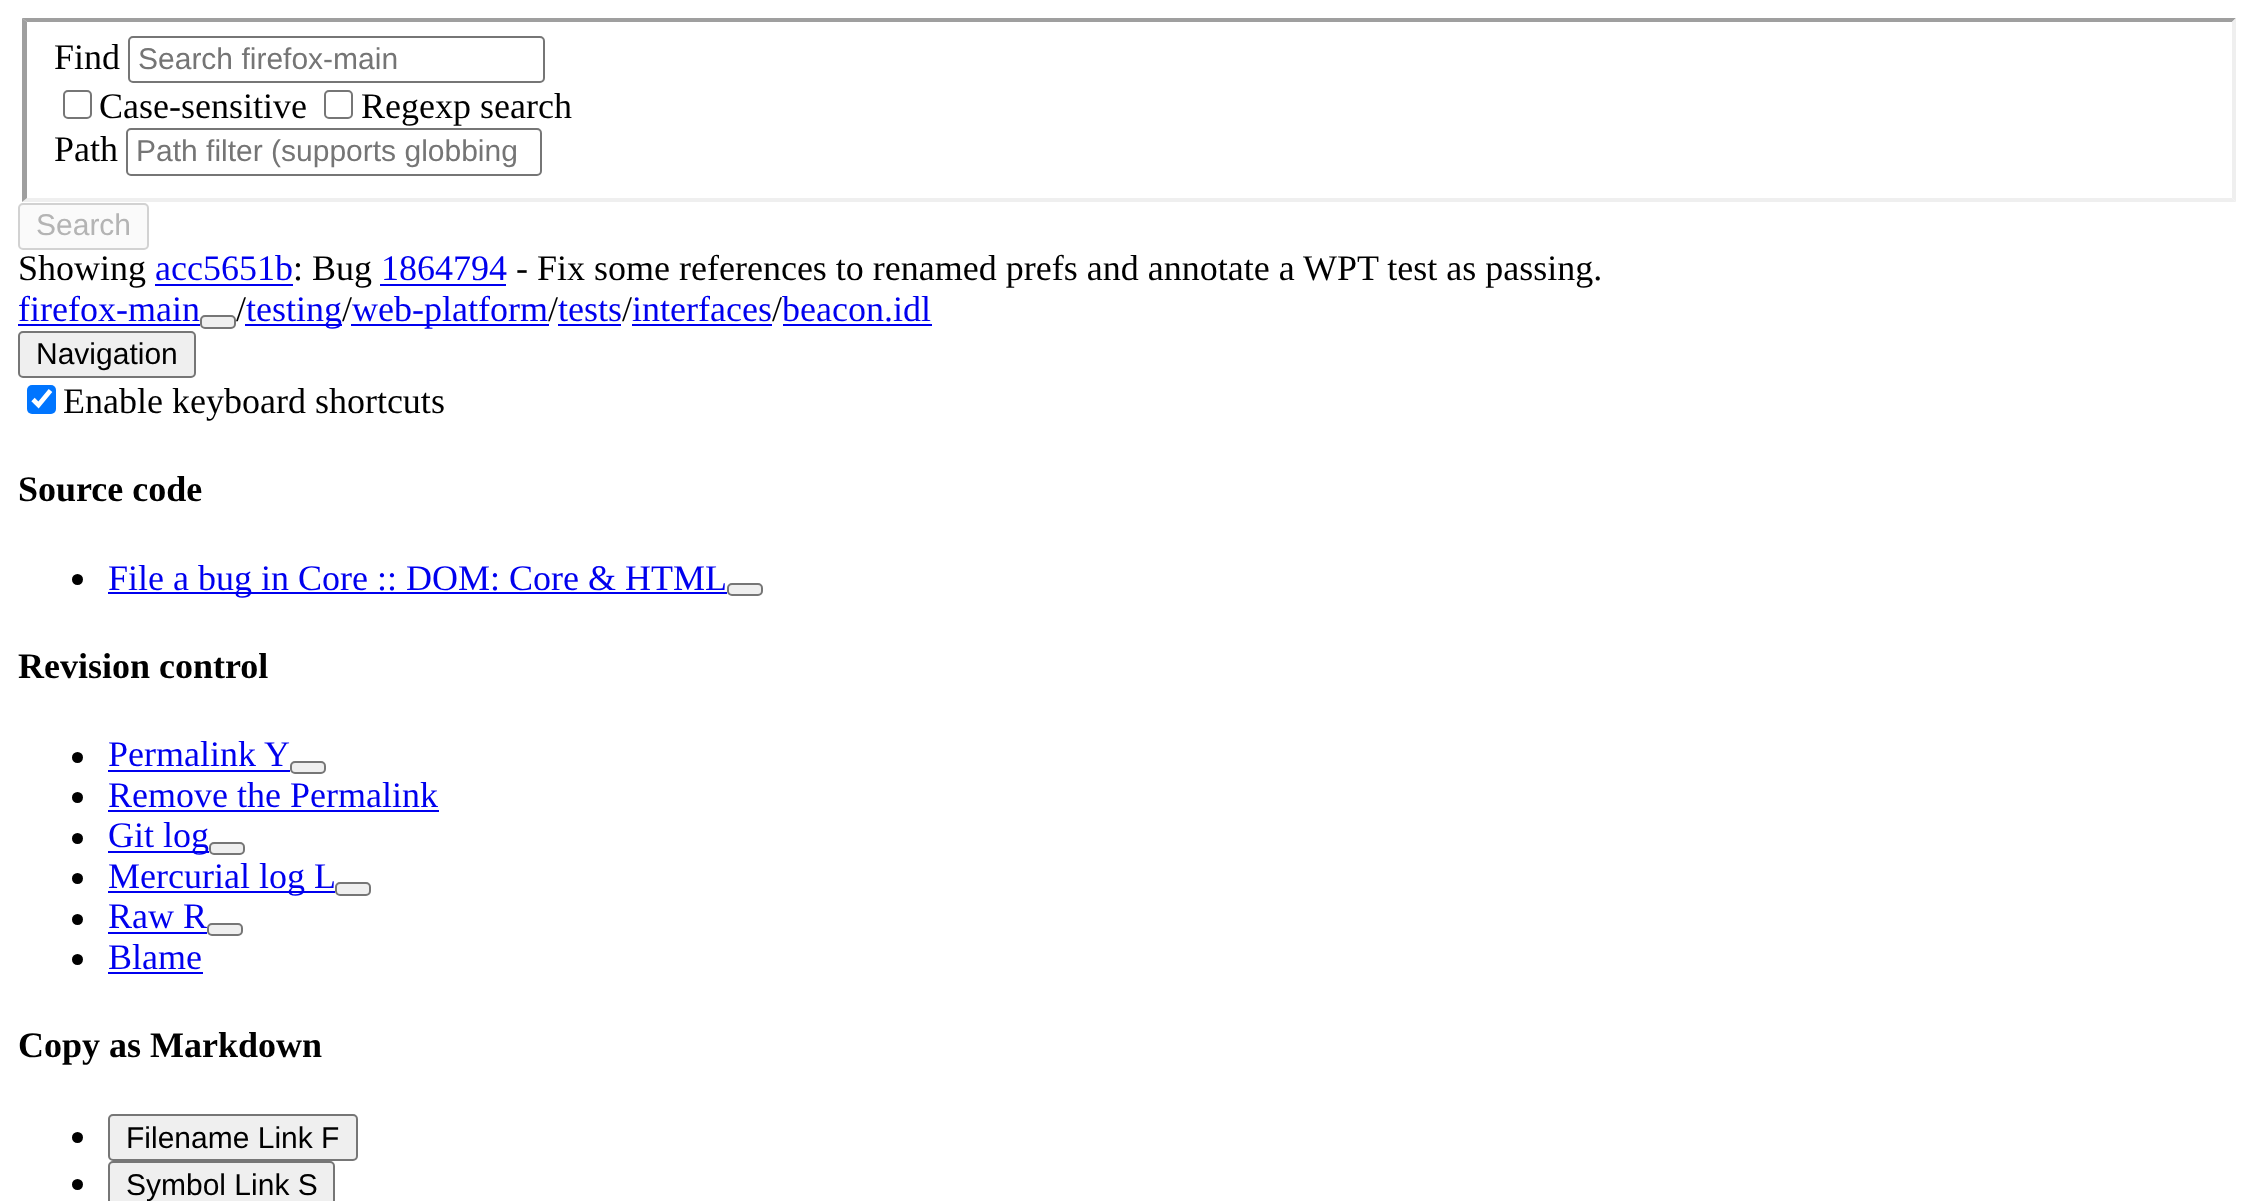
<svg xmlns="http://www.w3.org/2000/svg" width="2258" height="1201" viewBox="0 0 2258 1201">
  <rect width="100%" height="100%" fill="rgb(255,255,255)"/>
  <path d="M22 18H2236L2232 22H27Z" fill="rgb(159,159,159)"/>
  <path d="M2236 18V202L2232 198V22Z" fill="rgb(239,239,239)"/>
  <path d="M2236 202H22L27 198H2232Z" fill="rgb(239,239,239)"/>
  <path d="M22 202V18L27 22V198Z" fill="rgb(159,159,159)"/>
  <text x="54" y="69" font-family="Liberation Serif" font-size="36" fill="rgb(0,0,0)">Find</text>
  <rect x="129" y="37" width="415" height="45" rx="4" fill="none" stroke="rgb(118,118,118)" stroke-width="2"/>
  <text x="138" y="69" font-family="Liberation Sans" font-size="30" fill="rgb(117,117,117)">Search firefox-main</text>
  <rect x="64" y="91" width="27" height="27" rx="4" fill="none" stroke="rgb(118,118,118)" stroke-width="2"/>
  <text x="99" y="118" font-family="Liberation Serif" font-size="36" fill="rgb(0,0,0)">Case-sensitive</text>
  <rect x="325" y="91" width="27" height="27" rx="4" fill="none" stroke="rgb(118,118,118)" stroke-width="2"/>
  <g font-family="Liberation Serif" font-size="36" fill="rgb(0,0,0)">
    <text x="361" y="118">Regexp search</text>
    <text x="54" y="161">Path</text>
  </g>
  <rect x="127" y="129" width="414" height="46" rx="4" fill="none" stroke="rgb(118,118,118)" stroke-width="2"/>
  <text x="136" y="161" font-family="Liberation Sans" font-size="30" fill="rgb(117,117,117)">Path filter (supports globbing</text>
  <rect x="19" y="204" width="129" height="45" rx="4" fill="rgb(250,250,250)" stroke="rgb(210,210,210)" stroke-width="2"/>
  <text x="36" y="235" font-family="Liberation Sans" font-size="30" fill="rgb(180,180,180)">Search</text>
  <text x="18" y="280" font-family="Liberation Serif" font-size="36" fill="rgb(0,0,0)">Showing</text>
  <text x="155" y="280" font-family="Liberation Serif" font-size="36" fill="rgb(0,0,238)">acc5651b</text>
  <text x="293" y="280" font-family="Liberation Serif" font-size="36" fill="rgb(0,0,0)">: Bug</text>
  <rect x="155" y="284" width="138" height="2" fill="rgb(0,0,238)"/>
  <text x="381" y="280" font-family="Liberation Serif" font-size="36" fill="rgb(0,0,238)">1864794</text>
  <rect x="380" y="284" width="126" height="2" fill="rgb(0,0,238)"/>
  <text x="516" y="280" font-family="Liberation Serif" font-size="36" fill="rgb(0,0,0)">- Fix some references to renamed prefs and annotate a WPT test as passing.</text>
  <text x="18" y="321" font-family="Liberation Serif" font-size="36" fill="rgb(0,0,238)">firefox-main</text>
  <rect x="18" y="324" width="182" height="2" fill="rgb(0,0,238)"/>
  <rect x="201" y="316" width="34" height="12" rx="4" fill="rgb(239,239,239)" stroke="rgb(118,118,118)" stroke-width="2"/>
  <text x="236" y="321" font-family="Liberation Serif" font-size="36" fill="rgb(0,0,0)">/</text>
  <rect x="245" y="324" width="97" height="2" fill="rgb(0,0,238)"/>
  <text x="246" y="321" font-family="Liberation Serif" font-size="36" fill="rgb(0,0,238)">testing</text>
  <text x="342" y="321" font-family="Liberation Serif" font-size="36" fill="rgb(0,0,0)">/</text>
  <rect x="351" y="324" width="198" height="2" fill="rgb(0,0,238)"/>
  <text x="352" y="321" font-family="Liberation Serif" font-size="36" fill="rgb(0,0,238)">web-platform</text>
  <text x="548" y="321" font-family="Liberation Serif" font-size="36" fill="rgb(0,0,0)">/</text>
  <text x="558" y="321" font-family="Liberation Serif" font-size="36" fill="rgb(0,0,238)">tests</text>
  <rect x="558" y="324" width="63" height="2" fill="rgb(0,0,238)"/>
  <text x="622" y="321" font-family="Liberation Serif" font-size="36" fill="rgb(0,0,0)">/</text>
  <text x="632" y="321" font-family="Liberation Serif" font-size="36" fill="rgb(0,0,238)">interfaces</text>
  <rect x="632" y="324" width="140" height="2" fill="rgb(0,0,238)"/>
  <text x="772" y="321" font-family="Liberation Serif" font-size="36" fill="rgb(0,0,0)">/</text>
  <text x="782" y="321" font-family="Liberation Serif" font-size="36" fill="rgb(0,0,238)">beacon.idl</text>
  <rect x="783" y="324" width="149" height="2" fill="rgb(0,0,238)"/>
  <rect x="19" y="332" width="176" height="45" rx="4" fill="rgb(239,239,239)" stroke="rgb(118,118,118)" stroke-width="2"/>
  <text x="36" y="364" font-family="Liberation Sans" font-size="30" fill="rgb(0,0,0)">Navigation</text>
  <rect x="27" y="385" width="29" height="29" rx="5" fill="rgb(0,117,255)"/>
  <path d="M33 399.5L38.5 405L50.5 390.5" fill="none" stroke="rgb(255,255,255)" stroke-width="4.7"/>
  <text x="63" y="413" font-family="Liberation Serif" font-size="36" fill="rgb(0,0,0)">Enable keyboard shortcuts</text>
  <text x="18" y="501" font-family="Liberation Serif" font-size="36" font-weight="bold" fill="rgb(0,0,0)">Source code</text>
  <circle cx="77.5" cy="579.5" r="5.5" fill="rgb(0,0,0)"/>
  <rect x="108" y="592" width="619" height="2" fill="rgb(0,0,238)"/>
  <text x="108" y="590" font-family="Liberation Serif" font-size="36" fill="rgb(0,0,238)">File a bug in Core :: DOM: Core &amp; HTML</text>
  <rect x="728" y="584" width="34" height="11" rx="4" fill="rgb(239,239,239)" stroke="rgb(118,118,118)" stroke-width="2"/>
  <text x="18" y="678" font-family="Liberation Serif" font-size="36" font-weight="bold" fill="rgb(0,0,0)">Revision control</text>
  <circle cx="77.5" cy="757.5" r="5.5" fill="rgb(0,0,0)"/>
  <text x="108" y="766" font-family="Liberation Serif" font-size="36" fill="rgb(0,0,238)">Permalink</text>
  <rect x="108" y="770" width="182" height="2" fill="rgb(0,0,238)"/>
  <text x="264" y="766" font-family="Liberation Serif" font-size="36" fill="rgb(0,0,238)">Y</text>
  <rect x="291" y="762" width="34" height="11" rx="4" fill="rgb(239,239,239)" stroke="rgb(118,118,118)" stroke-width="2"/>
  <circle cx="77.5" cy="797.5" r="5.5" fill="rgb(0,0,0)"/>
  <text x="108" y="807" font-family="Liberation Serif" font-size="36" fill="rgb(0,0,238)">Remove the Permalink</text>
  <rect x="108" y="810" width="331" height="2" fill="rgb(0,0,238)"/>
  <circle cx="77.5" cy="838.5" r="5.5" fill="rgb(0,0,0)"/>
  <rect x="108" y="851" width="101" height="2" fill="rgb(0,0,238)"/>
  <text x="108" y="847" font-family="Liberation Serif" font-size="36" fill="rgb(0,0,238)">Git log</text>
  <rect x="210" y="843" width="34" height="11" rx="4" fill="rgb(239,239,239)" stroke="rgb(118,118,118)" stroke-width="2"/>
  <circle cx="77.5" cy="878.5" r="5.5" fill="rgb(0,0,0)"/>
  <rect x="108" y="891" width="227" height="2" fill="rgb(0,0,238)"/>
  <text x="108" y="888" font-family="Liberation Serif" font-size="36" fill="rgb(0,0,238)">Mercurial log L</text>
  <rect x="336" y="883" width="34" height="12" rx="4" fill="rgb(239,239,239)" stroke="rgb(118,118,118)" stroke-width="2"/>
  <circle cx="77.5" cy="919.5" r="5.5" fill="rgb(0,0,0)"/>
  <text x="108" y="928" font-family="Liberation Serif" font-size="36" fill="rgb(0,0,238)">Raw R</text>
  <rect x="108" y="932" width="99" height="2" fill="rgb(0,0,238)"/>
  <rect x="208" y="924" width="34" height="11" rx="4" fill="rgb(239,239,239)" stroke="rgb(118,118,118)" stroke-width="2"/>
  <circle cx="77.5" cy="959.5" r="5.5" fill="rgb(0,0,0)"/>
  <text x="108" y="969" font-family="Liberation Serif" font-size="36" fill="rgb(0,0,238)">Blame</text>
  <rect x="108" y="972" width="95" height="2" fill="rgb(0,0,238)"/>
  <text x="18" y="1057" font-family="Liberation Serif" font-size="36" font-weight="bold" fill="rgb(0,0,0)">Copy as Markdown</text>
  <circle cx="77.5" cy="1137.5" r="5.5" fill="rgb(0,0,0)"/>
  <rect x="109" y="1115" width="248" height="45" rx="4" fill="rgb(239,239,239)" stroke="rgb(118,118,118)" stroke-width="2"/>
  <text x="126" y="1148" font-family="Liberation Sans" font-size="30" fill="rgb(0,0,0)">Filename Link F</text>
  <circle cx="77.5" cy="1184.5" r="5.5" fill="rgb(0,0,0)"/>
  <rect x="109" y="1162" width="225" height="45" rx="4" fill="rgb(239,239,239)" stroke="rgb(118,118,118)" stroke-width="2"/>
  <text x="126" y="1195" font-family="Liberation Sans" font-size="30" fill="rgb(0,0,0)">Symbol Link S</text>
</svg>
